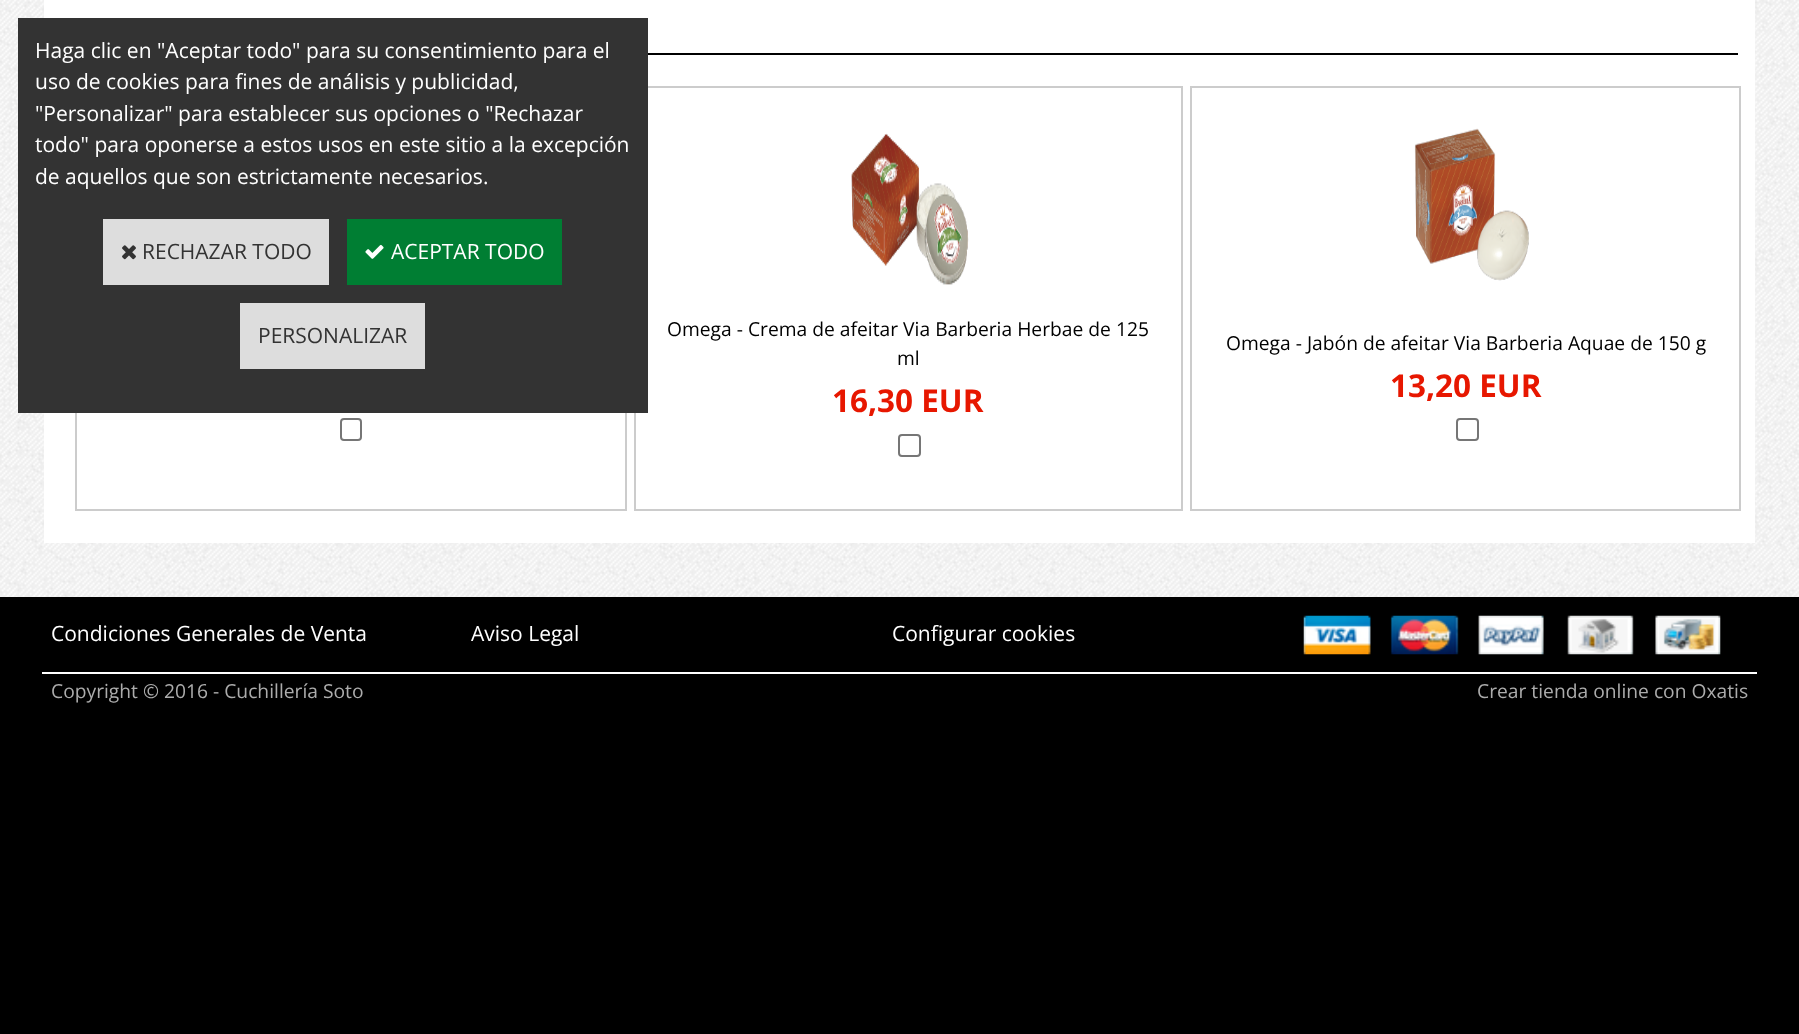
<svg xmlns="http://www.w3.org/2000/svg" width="1799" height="1034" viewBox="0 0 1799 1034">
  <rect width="100%" height="100%" fill="rgb(255,255,255)"/>
  <image x="0" y="0" width="1799" height="597" href="pic1.png"/>
  <rect x="44" y="0" width="1711" height="543" fill="rgb(255,255,255)"/>
  <rect x="76" y="87" width="550" height="423" fill="none" stroke="rgb(204,204,204)" stroke-width="2"/>
  <rect x="635" y="87" width="547" height="423" fill="none" stroke="rgb(204,204,204)" stroke-width="2"/>
  <rect x="18" y="18" width="630" height="395" fill="rgb(51,51,51)"/>
  <g font-family="Open Sans" font-size="21" fill="rgb(255,255,255)">
    <text>
      <tspan x="35" y="58">Haga clic en "Aceptar todo" para su consentimiento para el</tspan>
      <tspan x="35" y="89">uso de cookies para fines de análisis y publicidad,</tspan>
      <tspan x="35" y="121">"Personalizar" para establecer sus opciones o "Rechazar</tspan>
      <tspan x="35" y="152">todo" para oponerse a estos usos en este sitio a la excepción</tspan>
      <tspan x="35" y="184">de aquellos que son estrictamente necesarios.</tspan>
    </text>
  </g>
  <rect x="103" y="219" width="226" height="66" fill="rgb(221,221,221)"/>
  <image x="122" y="245" width="14" height="15" href="pic2.png"/>
  <text x="142" y="259" font-family="Open Sans" font-size="21" fill="rgb(51,51,51)">RECHAZAR TODO</text>
  <rect x="347" y="219" width="215" height="66" fill="rgb(0,126,51)"/>
  <image x="365" y="244" width="19" height="15" href="pic3.png"/>
  <text x="391" y="259" font-family="Open Sans" font-size="21" fill="rgb(255,255,255)">ACEPTAR TODO</text>
  <rect x="240" y="303" width="185" height="66" fill="rgb(221,221,221)"/>
  <text x="258" y="343" font-family="Open Sans" font-size="21" fill="rgb(51,51,51)">PERSONALIZAR</text>
  <rect x="648" y="53" width="1090" height="2" fill="rgb(0,0,0)"/>
  <rect x="341" y="419" width="20" height="21" rx="3" fill="none" stroke="rgb(118,118,118)" stroke-width="2"/>
  <image x="851" y="133" width="118" height="152" href="pic4.png"/>
  <g font-family="Open Sans" font-size="19.25" fill="rgb(0,0,0)">
    <text x="667" y="336">Omega - Crema de afeitar Via Barberia Herbae de 125</text>
    <text x="897" y="365">ml</text>
  </g>
  <text x="832" y="412" font-family="Open Sans" font-size="31.5" font-weight="bold" fill="rgb(231,23,0)">16,30 EUR</text>
  <rect x="899" y="435" width="21" height="21" rx="3" fill="none" stroke="rgb(118,118,118)" stroke-width="2"/>
  <rect x="1191" y="87" width="549" height="423" fill="none" stroke="rgb(204,204,204)" stroke-width="2"/>
  <image x="1414" y="128" width="115" height="153" href="pic5.png"/>
  <text x="1226" y="350" font-family="Open Sans" font-size="19.25" fill="rgb(0,0,0)">Omega - Jabón de afeitar Via Barberia Aquae de 150 g</text>
  <text x="1390" y="397" font-family="Open Sans" font-size="31.5" font-weight="bold" fill="rgb(231,23,0)">13,20 EUR</text>
  <rect x="1457" y="419" width="21" height="21" rx="3" fill="none" stroke="rgb(118,118,118)" stroke-width="2"/>
  <rect x="0" y="597" width="1799" height="437" fill="rgb(0,0,0)"/>
  <rect x="42" y="672" width="1715" height="2" fill="rgb(255,255,255)"/>
  <g font-family="Open Sans" font-size="21" fill="rgb(255,255,255)">
    <text x="51" y="641">Condiciones Generales de Venta</text>
    <text x="471" y="641">Aviso Legal</text>
    <text x="892" y="641">Configurar cookies</text>
  </g>
  <image x="1303" y="615" width="418" height="40" href="pic6.png"/>
  <g font-family="Open Sans" font-size="19.25" fill="rgb(172,172,172)">
    <text x="51" y="698">Copyright © 2016 - Cuchillería Soto</text>
    <text x="1477" y="698">Crear tienda online con Oxatis</text>
  </g>
</svg>
